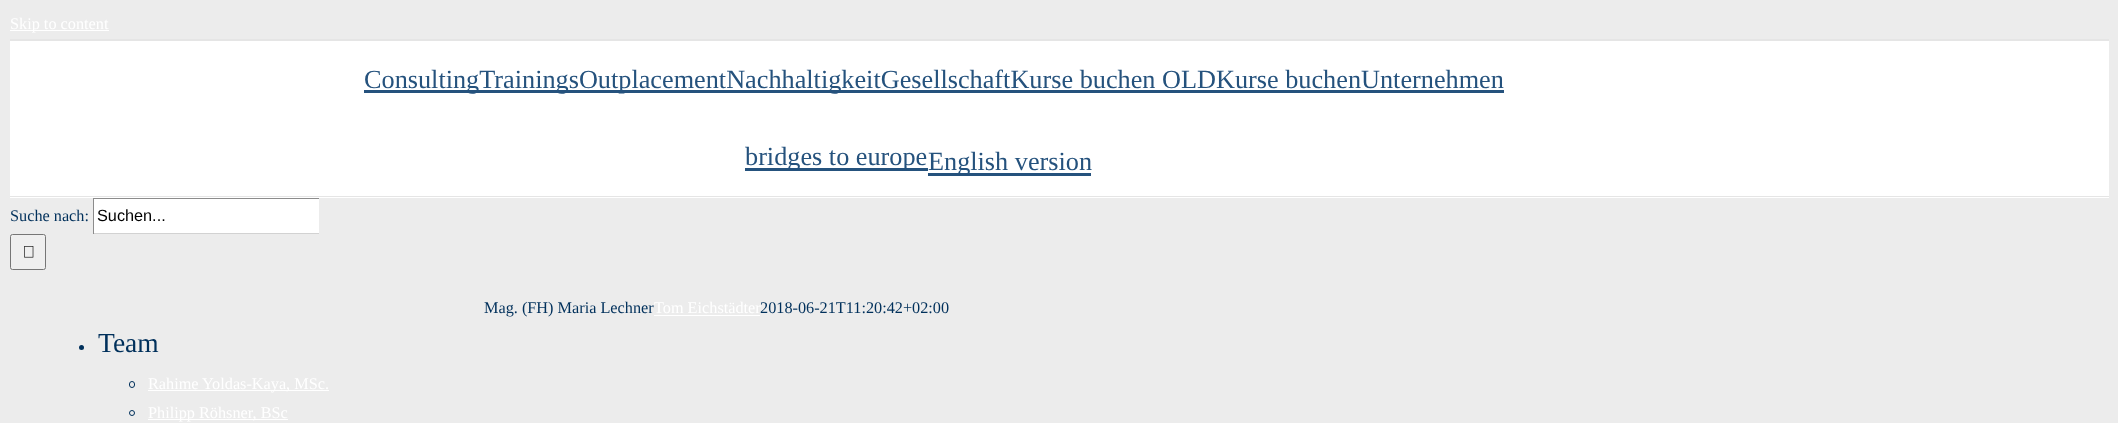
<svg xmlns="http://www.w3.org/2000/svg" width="2118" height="423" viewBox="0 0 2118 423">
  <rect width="100%" height="100%" fill="rgb(236,236,236)"/>
  <rect x="10" y="30" width="99" height="1" fill="rgb(255,255,255)"/>
  <text x="10" y="29" font-family="Liberation Serif" font-size="16.25" fill="rgb(255,255,255)">Skip to content</text>
  <rect x="10" y="39" width="2099" height="2" fill="rgb(229,229,229)"/>
  <rect x="10" y="41" width="2099" height="157" fill="rgb(255,255,255)"/>
  <rect x="10" y="196" width="2099" height="1" fill="rgb(229,229,229)"/>
  <rect x="364" y="90" width="1140" height="3" fill="rgb(37,82,125)"/>
  <text x="364" y="88" font-family="Liberation Serif" font-size="26.25" fill="rgb(37,82,125)">ConsultingTrainingsOutplacementNachhaltigkeitGesellschaftKurse buchen OLDKurse buchenUnternehmen</text>
  <rect x="745" y="168" width="183" height="3" fill="rgb(37,82,125)"/>
  <text x="745" y="165" font-family="Liberation Serif" font-size="26.25" fill="rgb(37,82,125)">bridges to europe</text>
  <rect x="928" y="173" width="163" height="3" fill="rgb(37,82,125)"/>
  <text x="928" y="170" font-family="Liberation Serif" font-size="26.25" fill="rgb(37,82,125)">English version</text>
  <text x="10" y="221" font-family="Liberation Serif" font-size="16.25" fill="rgb(0,48,91)">Suche nach:</text>
  <rect x="94" y="199" width="225" height="34" fill="rgb(255,255,255)"/>
  <rect x="93" y="198" width="226" height="1" fill="rgb(140,140,140)"/>
  <rect x="93" y="233" width="226" height="1" fill="rgb(210,210,210)"/>
  <rect x="93" y="198" width="1" height="36" fill="rgb(140,140,140)"/>
  <text x="97" y="221" font-family="Liberation Sans" font-size="16.25" fill="rgb(0,0,0)">Suchen...</text>
  <rect x="10.5" y="234.5" width="35" height="35" rx="2" fill="rgb(239,239,239)" stroke="rgb(118,118,118)"/>
  <image x="24" y="246" width="10" height="12" href="pic1.png"/>
  <text x="484" y="313" font-family="Liberation Serif" font-size="16.25" fill="rgb(0,48,91)">Mag. (FH) Maria Lechner</text>
  <text x="654" y="313" font-family="Liberation Serif" font-size="16.25" fill="rgb(255,255,255)">Tom Eichstädter</text>
  <rect x="654" y="315" width="106" height="1" fill="rgb(255,255,255)"/>
  <text x="760" y="313" font-family="Liberation Serif" font-size="16.25" fill="rgb(0,48,91)">2018-06-21T11:20:42+02:00</text>
  <circle cx="81.5" cy="347.5" r="2.5" fill="rgb(0,48,91)"/>
  <text x="98" y="352" font-family="Liberation Serif" font-size="27.5" fill="rgb(0,48,91)">Team</text>
  <rect x="129.5" y="381.5" width="5" height="6" rx="2.5" fill="none" stroke="rgb(0,48,91)"/>
  <rect x="148" y="390" width="181" height="1" fill="rgb(255,255,255)"/>
  <text x="148" y="389" font-family="Liberation Serif" font-size="16.25" fill="rgb(255,255,255)">Rahime Yoldas-Kaya, MSc.</text>
  <circle cx="132" cy="413" r="2.5" fill="none" stroke="rgb(0,48,91)"/>
  <rect x="148" y="419" width="140" height="1" fill="rgb(255,255,255)"/>
  <text x="148" y="418" font-family="Liberation Serif" font-size="16.25" fill="rgb(255,255,255)">Philipp Röhsner, BSc</text>
</svg>
